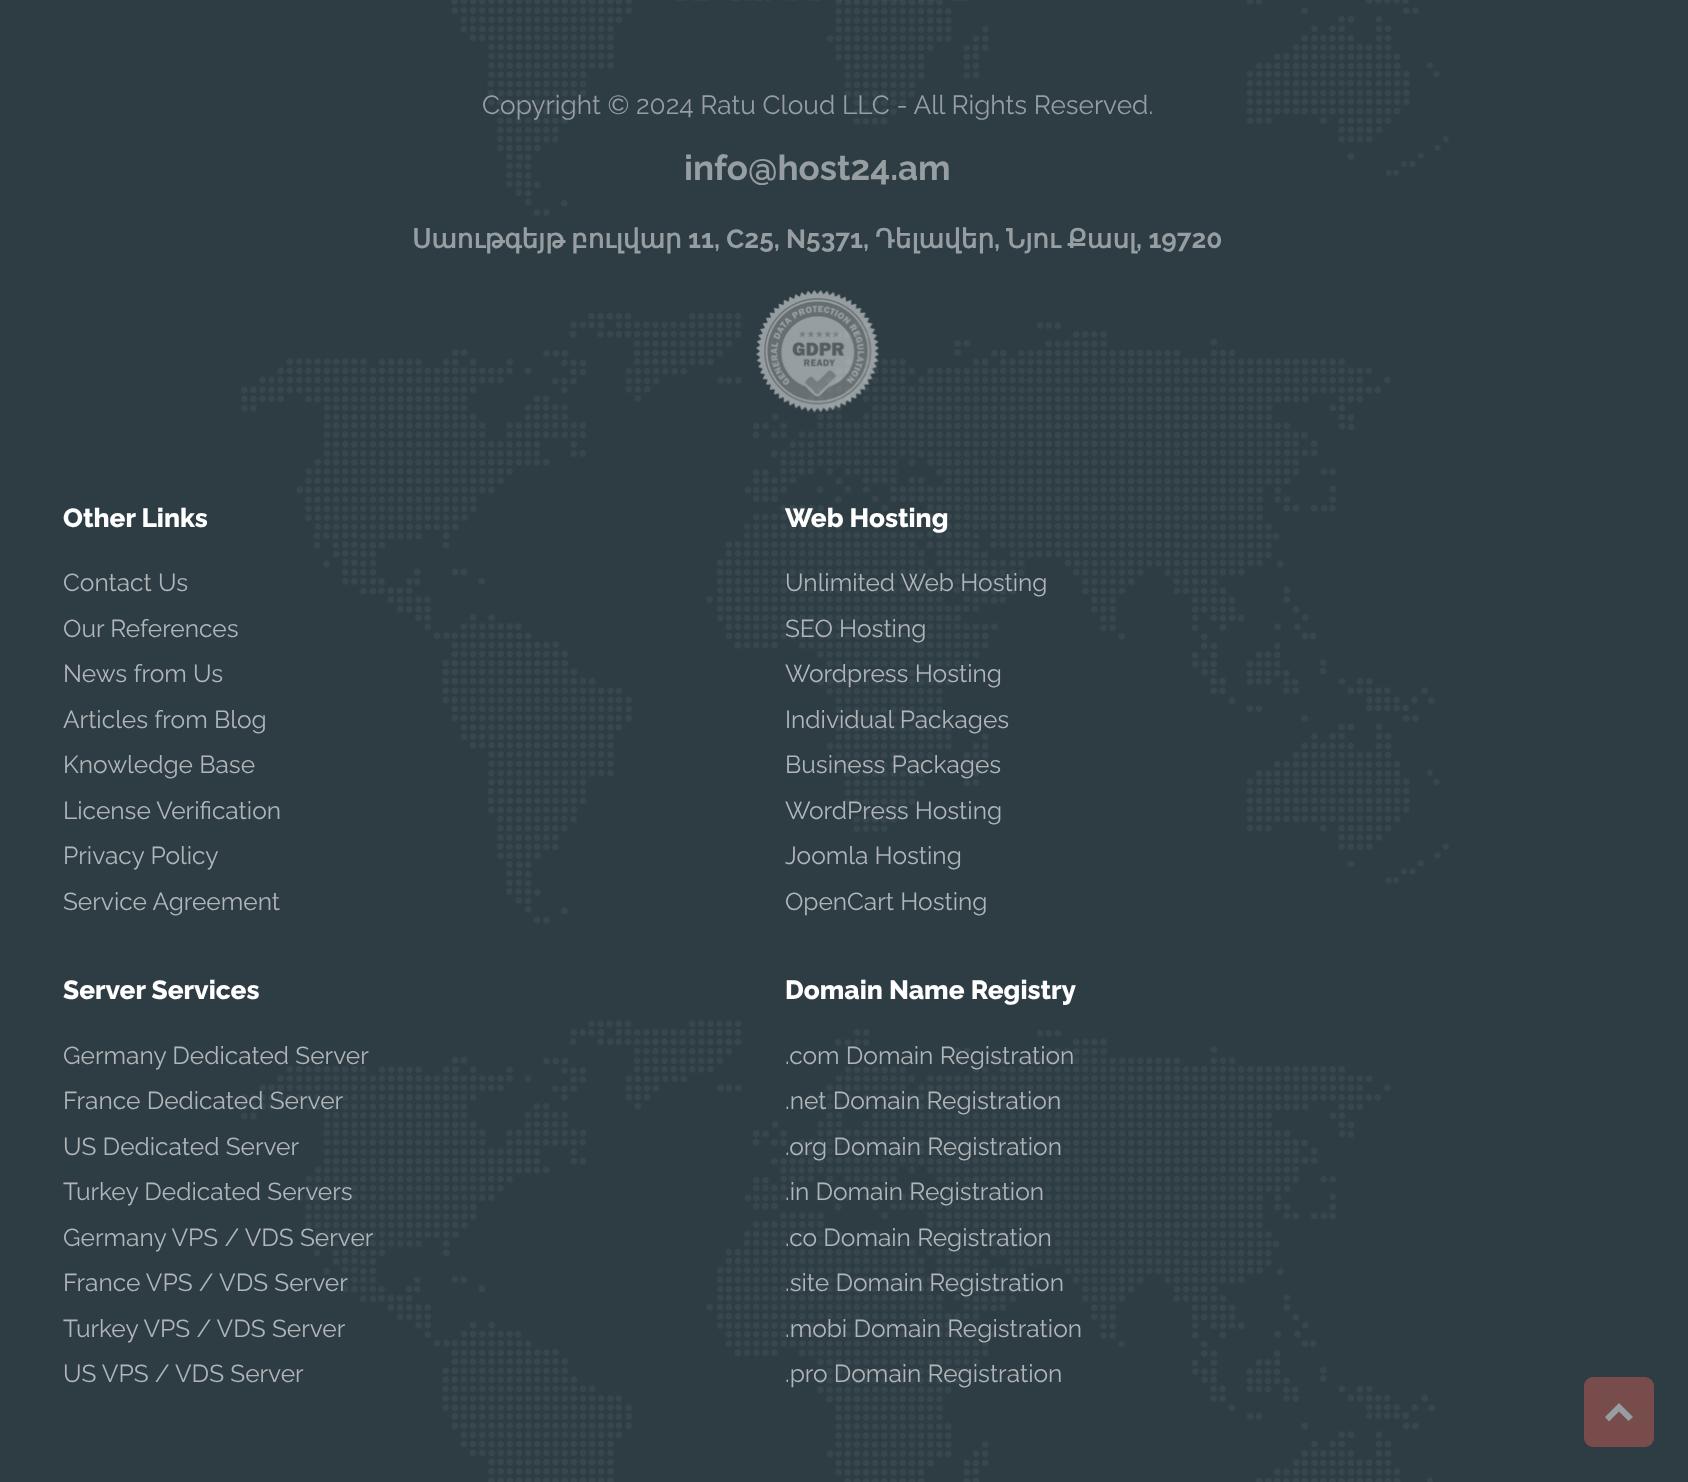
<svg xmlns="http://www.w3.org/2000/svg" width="1688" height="1482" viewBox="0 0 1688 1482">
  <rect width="100%" height="100%" fill="rgb(46,61,68)"/>
  <image x="241" y="0" width="1208" height="1482" href="pic1.png"/>
  <image x="676" y="0" width="293" height="1" href="pic2.png"/>
  <text x="482" y="114" font-family="Raleway" font-size="26.25" font-weight="100" fill="rgb(151,158,162)">Copyright © 2024 Ratu Cloud LLC - All Rights Reserved.</text>
  <text x="684" y="180" font-family="'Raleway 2'" font-size="35" font-weight="100" fill="rgb(151,158,162)">info@host24.am</text>
  <g font-family="DejaVu Sans" font-size="26.25" font-weight="bold" fill="rgb(151,158,162)">
    <text x="412" y="248">Սաութգեյթ</text>
    <text x="571" y="248">բուլվար</text>
  </g>
  <text x="688" y="248" font-family="'Raleway 2'" font-size="26.25" font-weight="100" fill="rgb(151,158,162)">11, C25, N5371,</text>
  <text x="875" y="248" font-family="DejaVu Sans" font-size="26.25" font-weight="bold" fill="rgb(151,158,162)">Դելավեր</text>
  <text x="994" y="248" font-family="'Raleway 2'" font-size="26.25" font-weight="100" fill="rgb(151,158,162)">,</text>
  <g font-family="DejaVu Sans" font-size="26.25" font-weight="bold" fill="rgb(151,158,162)">
    <text x="1006" y="248">Նյու</text>
    <text x="1067" y="248">Քասլ</text>
  </g>
  <text x="1136" y="248" font-family="'Raleway 2'" font-size="26.25" font-weight="100" fill="rgb(151,158,162)">, 19720</text>
  <image x="756" y="290" width="123" height="123" href="pic3.png"/>
  <text x="63" y="527" font-family="'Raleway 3'" font-size="26.25" font-weight="100" fill="rgb(255,255,255)">Other Links</text>
  <g font-family="Raleway" font-size="24.5" font-weight="100" fill="rgb(176,181,184)">
    <text>
      <tspan x="63" y="591">Contact Us</tspan>
      <tspan x="63" y="637">Our References</tspan>
      <tspan x="63" y="682">News from Us</tspan>
      <tspan x="63" y="728">Articles from Blog</tspan>
      <tspan x="63" y="773">Knowledge Base</tspan>
      <tspan x="63" y="819">License Verification</tspan>
      <tspan x="63" y="864">Privacy Policy</tspan>
      <tspan x="63" y="910">Service Agreement</tspan>
    </text>
  </g>
  <text x="785" y="527" font-family="'Raleway 3'" font-size="26.25" font-weight="100" fill="rgb(255,255,255)">Web Hosting</text>
  <g font-family="Raleway" font-size="24.5" font-weight="100" fill="rgb(176,181,184)">
    <text>
      <tspan x="785" y="591">Unlimited Web Hosting</tspan>
      <tspan x="785" y="637">SEO Hosting</tspan>
      <tspan x="785" y="682">Wordpress Hosting</tspan>
      <tspan x="785" y="728">Individual Packages</tspan>
      <tspan x="785" y="773">Business Packages</tspan>
      <tspan x="785" y="819">WordPress Hosting</tspan>
      <tspan x="785" y="864">Joomla Hosting</tspan>
      <tspan x="785" y="910">OpenCart Hosting</tspan>
    </text>
  </g>
  <text x="63" y="999" font-family="'Raleway 3'" font-size="26.25" font-weight="100" fill="rgb(255,255,255)">Server Services</text>
  <g font-family="Raleway" font-size="24.5" font-weight="100" fill="rgb(176,181,184)">
    <text>
      <tspan x="63" y="1064">Germany Dedicated Server</tspan>
      <tspan x="63" y="1109">France Dedicated Server</tspan>
      <tspan x="63" y="1155">US Dedicated Server</tspan>
      <tspan x="63" y="1200">Turkey Dedicated Servers</tspan>
      <tspan x="63" y="1246">Germany VPS / VDS Server</tspan>
      <tspan x="63" y="1291">France VPS / VDS Server</tspan>
      <tspan x="63" y="1337">Turkey VPS / VDS Server</tspan>
      <tspan x="63" y="1382">US VPS / VDS Server</tspan>
    </text>
  </g>
  <text x="785" y="999" font-family="'Raleway 3'" font-size="26.25" font-weight="100" fill="rgb(255,255,255)">Domain Name Registry</text>
  <g font-family="Raleway" font-size="24.5" font-weight="100" fill="rgb(176,181,184)">
    <text>
      <tspan x="785" y="1064">.com Domain Registration</tspan>
      <tspan x="785" y="1109">.net Domain Registration</tspan>
      <tspan x="785" y="1155">.org Domain Registration</tspan>
      <tspan x="785" y="1200">.in Domain Registration</tspan>
      <tspan x="785" y="1246">.co Domain Registration</tspan>
      <tspan x="785" y="1291">.site Domain Registration</tspan>
      <tspan x="785" y="1337">.mobi Domain Registration</tspan>
      <tspan x="785" y="1382">.pro Domain Registration</tspan>
    </text>
  </g>
  <rect x="1584" y="1377" width="70" height="70" rx="9" fill="rgb(120,76,75)"/>
  <path d="M1619 1403L1633 1417L1628.5 1421L1619 1411.5L1609 1421.5L1605 1417Z" fill="rgb(151,158,162)"/>
</svg>
